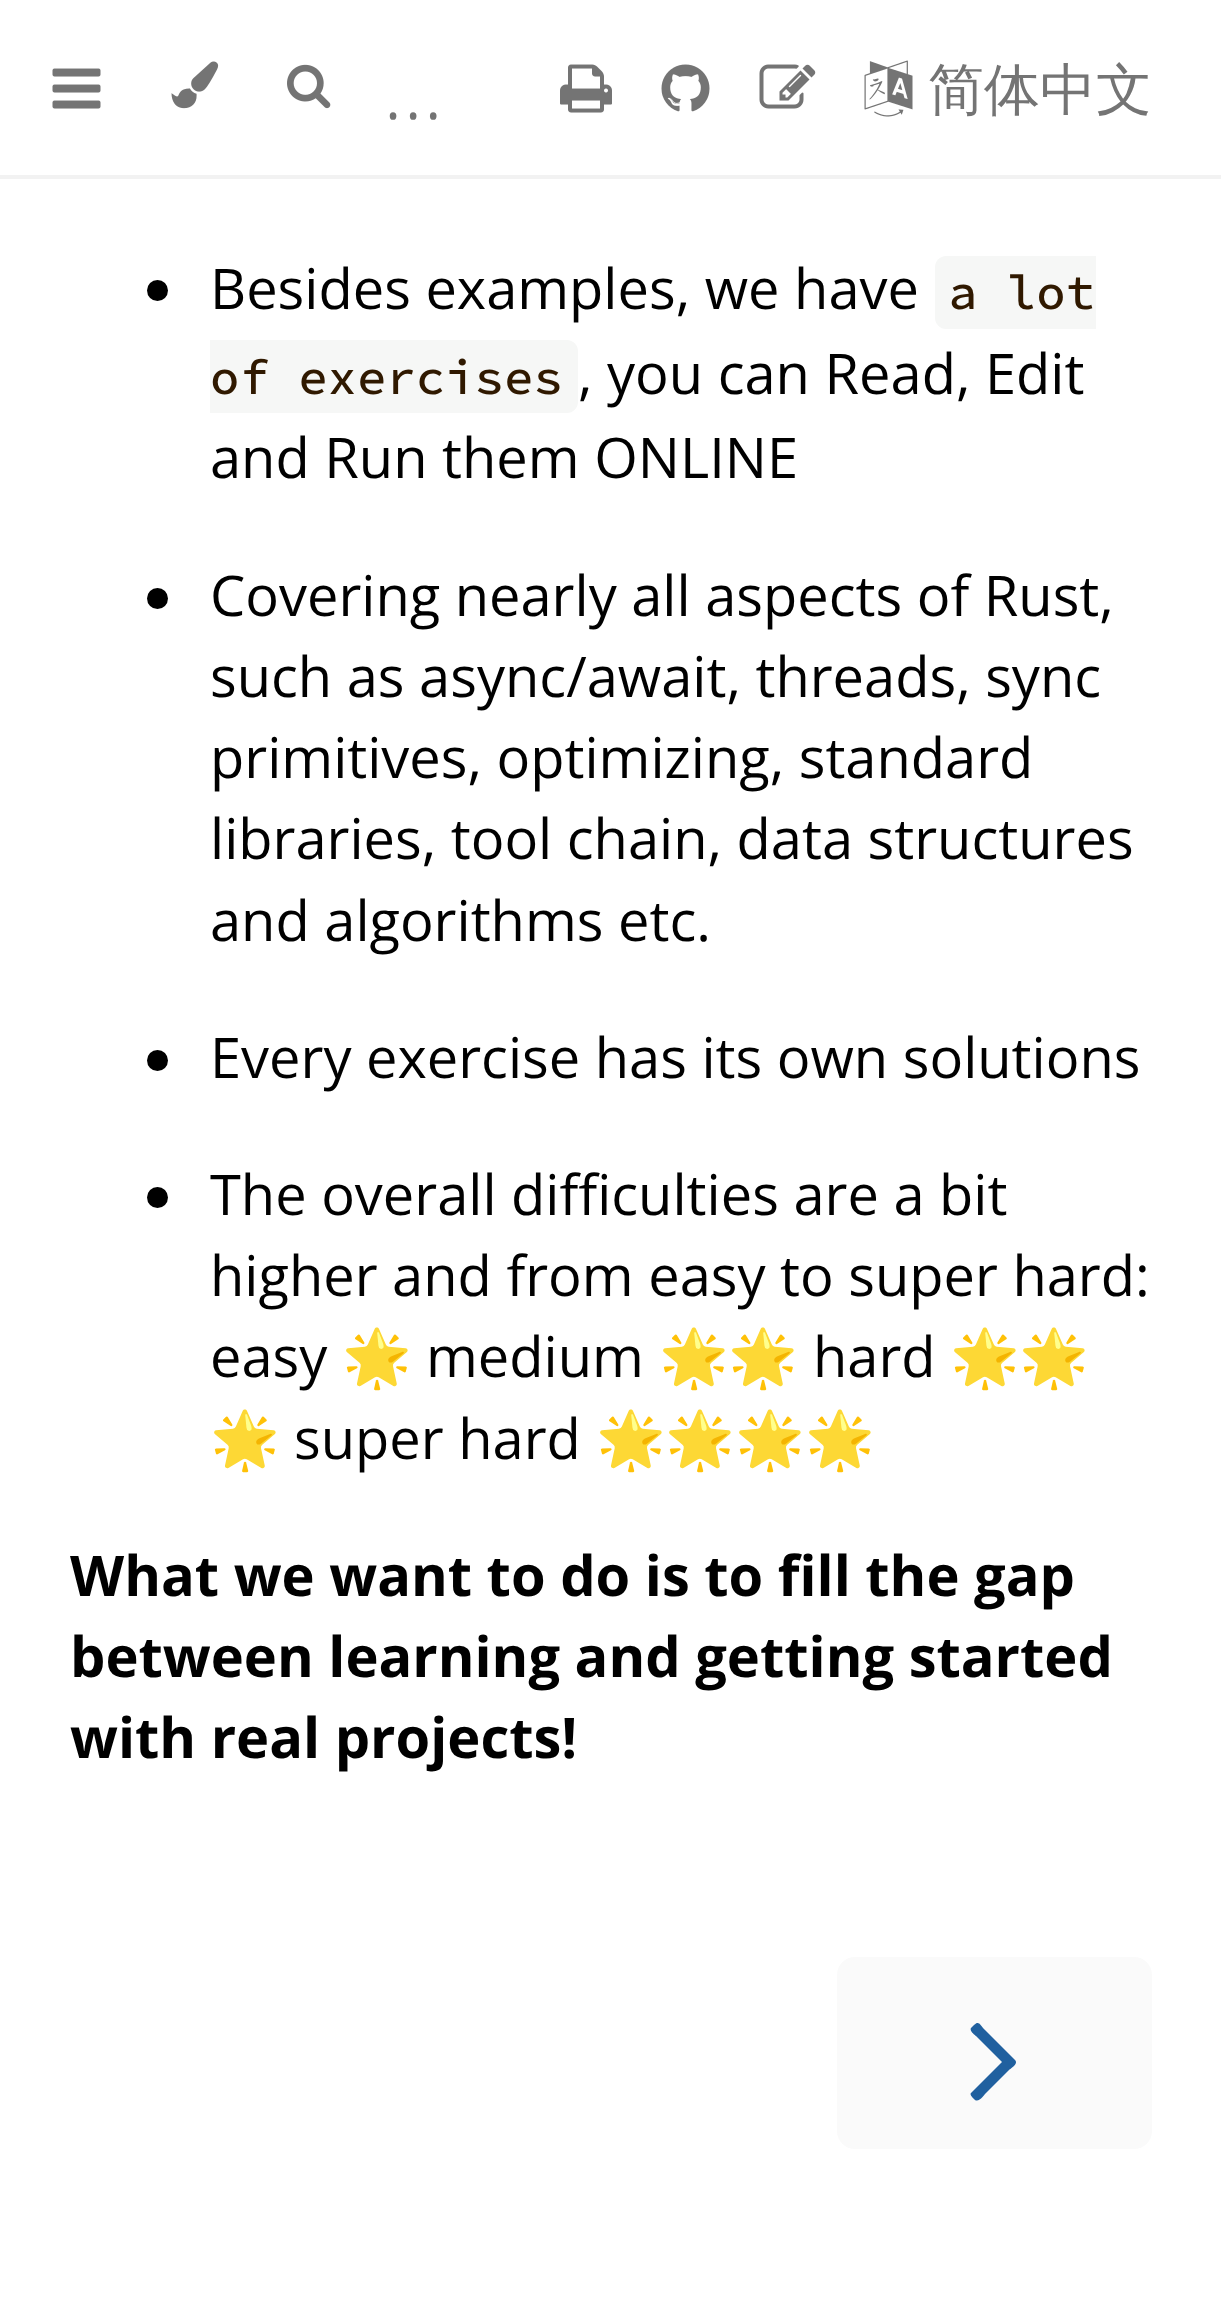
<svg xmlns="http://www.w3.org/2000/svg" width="1221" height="2322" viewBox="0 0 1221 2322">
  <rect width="100%" height="100%" fill="rgb(255,255,255)"/>
  <rect x="0" y="175" width="1221" height="4" fill="rgb(242,242,242)"/>
  <image x="52" y="68" width="49" height="41" href="pic1.png"/>
  <image x="171" y="61" width="48" height="48" href="pic2.png"/>
  <image x="287" y="64" width="44" height="45" href="pic3.png"/>
  <text x="383" y="119" font-family="Open Sans" font-size="84" font-weight="300" fill="rgb(116,116,116)">…</text>
  <image x="560" y="64" width="52" height="49" href="pic4.png"/>
  <image x="661" y="64" width="49" height="48" href="pic5.png"/>
  <image x="759" y="64" width="57" height="45" href="pic6.png"/>
  <image x="864" y="60" width="49" height="57" href="pic7.png"/>
  <text x="928" y="109" font-family="WenQuanYi Zen Hei" font-size="56" font-weight="500" fill="rgb(116,116,116)">简体中文</text>
  <circle cx="157.5" cy="290.5" r="10.5" fill="rgb(0,0,0)"/>
  <text x="210" y="309" font-family="Open Sans" font-size="56" fill="rgb(0,0,0)">Besides examples, we have</text>
  <path d="M946 256H1096V329H946C940 329 935 324 935 318V267C935 261 940 256 946 256Z" fill="rgb(246,247,246)"/>
  <text x="948" y="309" font-family="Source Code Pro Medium" font-size="49" font-weight="500" fill="rgb(48,25,0)">a lot</text>
  <path d="M210 340H567C573 340 578 345 578 351V402C578 408 573 413 567 413H210Z" fill="rgb(246,247,246)"/>
  <text x="210" y="394" font-family="Source Code Pro Medium" font-size="49" font-weight="500" fill="rgb(48,25,0)">of exercises</text>
  <g font-family="Open Sans" font-size="56" fill="rgb(0,0,0)">
    <text x="578" y="394">, you can Read, Edit</text>
    <text x="210" y="478">and Run them ONLINE</text>
  </g>
  <circle cx="157.5" cy="598.5" r="10.5" fill="rgb(0,0,0)"/>
  <g font-family="Open Sans" font-size="56" fill="rgb(0,0,0)">
    <text>
      <tspan x="210" y="616">Covering nearly all aspects of Rust,</tspan>
      <tspan x="210" y="697">such as async/await, threads, sync</tspan>
      <tspan x="210" y="778">primitives, optimizing, standard</tspan>
      <tspan x="210" y="859">libraries, tool chain, data structures</tspan>
      <tspan x="210" y="941">and algorithms etc.</tspan>
    </text>
  </g>
  <circle cx="157.5" cy="1060.5" r="10.5" fill="rgb(0,0,0)"/>
  <text x="210" y="1078" font-family="Open Sans" font-size="56" fill="rgb(0,0,0)">Every exercise has its own solutions</text>
  <circle cx="157.5" cy="1197.5" r="10.5" fill="rgb(0,0,0)"/>
  <g font-family="Open Sans" font-size="56" fill="rgb(0,0,0)">
    <text>
      <tspan x="210" y="1215">The overall difficulties are a bit</tspan>
      <tspan x="210" y="1296">higher and from easy to super hard:</tspan>
      <tspan x="210" y="1377">easy</tspan>
    </text>
  </g>
  <text x="342" y="1377" font-family="Noto Color Emoji" font-size="56" fill="rgb(0,0,0)">🌟</text>
  <text x="426" y="1377" font-family="Open Sans" font-size="56" fill="rgb(0,0,0)">medium</text>
  <text x="659" y="1377" font-family="Noto Color Emoji" font-size="56" fill="rgb(0,0,0)">🌟🌟</text>
  <text x="813" y="1377" font-family="Open Sans" font-size="56" fill="rgb(0,0,0)">hard</text>
  <g font-family="Noto Color Emoji" font-size="56" fill="rgb(0,0,0)">
    <text x="950" y="1377">🌟🌟</text>
    <text x="210" y="1459">🌟</text>
  </g>
  <text x="294" y="1459" font-family="Open Sans" font-size="56" fill="rgb(0,0,0)">super hard</text>
  <text x="596" y="1459" font-family="Noto Color Emoji" font-size="56" fill="rgb(0,0,0)">🌟🌟🌟🌟</text>
  <g font-family="Open Sans" font-size="56" font-weight="bold" fill="rgb(0,0,0)">
    <text>
      <tspan x="70" y="1596">What we want to do is to fill the gap</tspan>
      <tspan x="70" y="1677">between learning and getting started</tspan>
      <tspan x="70" y="1758">with real projects!</tspan>
    </text>
  </g>
  <rect x="837" y="1957" width="315" height="192" rx="18" fill="rgb(250,250,250)"/>
  <path d="M1015 2060C1019 2064 1010 2069 1009 2070L985 2094C985 2094 979 2103 975 2100C974 2099 969 2095 971 2093L1002 2062L976 2036C976 2036 969 2031 971 2028L974 2025C979 2020 980 2025 985 2030Z" fill="rgb(32,96,159)"/>
</svg>
